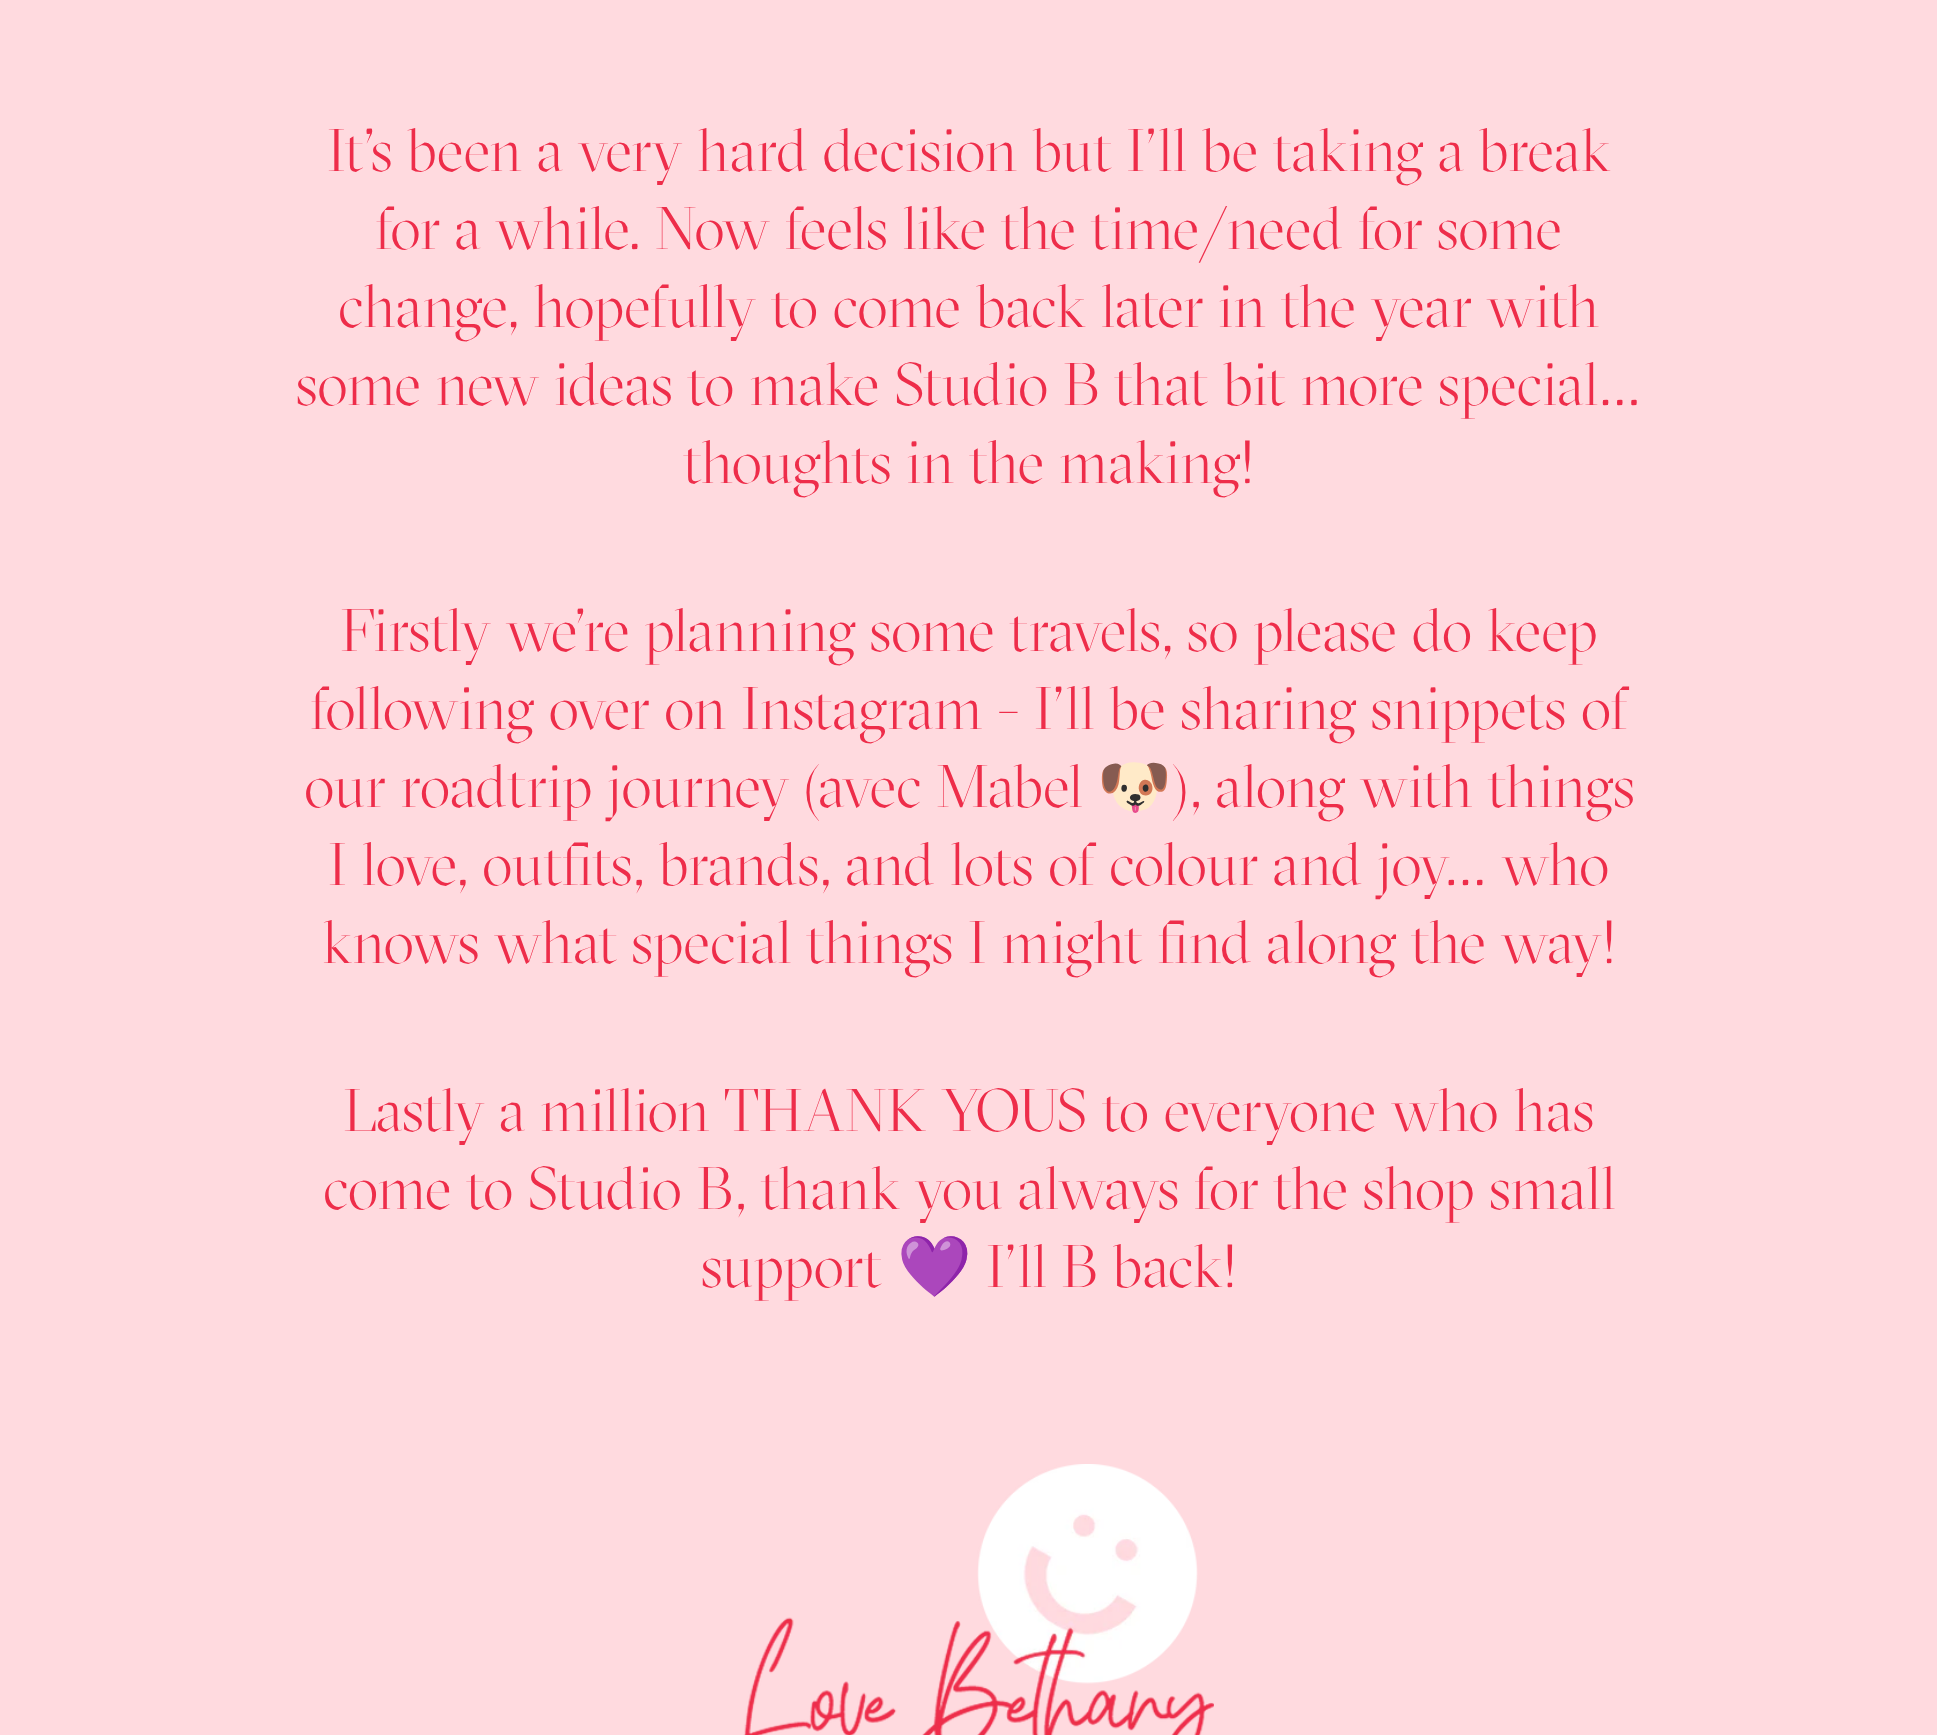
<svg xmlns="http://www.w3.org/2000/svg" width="1937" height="1735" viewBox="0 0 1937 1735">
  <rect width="100%" height="100%" fill="rgb(255,218,223)"/>
  <g font-family="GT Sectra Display" font-size="60" font-weight="300" fill="rgb(238,45,74)">
    <text x="327" y="171">It’s been a very hard decision but I’ll be taking a break</text>
    <text x="375" y="249">for a while. Now feels like the time/need for some</text>
    <text x="338" y="327">change, hopefully to come back later in the year with</text>
    <text x="296" y="405">some new ideas to make Studio B that bit more special…</text>
    <text x="683" y="483">thoughts in the making!</text>
    <text x="340" y="651">Firstly we’re planning some travels, so please do keep</text>
    <text x="310" y="729">following over on Instagram - I’ll be sharing snippets of</text>
    <text x="304" y="807">our roadtrip journey (avec Mabel</text>
  </g>
  <text x="1097" y="807" font-family="Noto Color Emoji" font-size="60" fill="rgb(238,45,74)">🐶</text>
  <g font-family="GT Sectra Display" font-size="60" font-weight="300" fill="rgb(238,45,74)">
    <text x="1172" y="807">), along with things</text>
    <text x="328" y="885">I love, outfits, brands, and lots of colour and joy… who</text>
    <text x="322" y="963">knows what special things I might find along the way!</text>
    <text x="343" y="1131">Lastly a million THANK YOUS to everyone who has</text>
    <text x="323" y="1209">come to Studio B, thank you always for the shop small</text>
    <text x="701" y="1287">support</text>
  </g>
  <text x="897" y="1287" font-family="Noto Color Emoji" font-size="60" fill="rgb(238,45,74)">💜</text>
  <text x="986" y="1287" font-family="GT Sectra Display" font-size="60" font-weight="300" fill="rgb(238,45,74)">I’ll B back!</text>
  <image x="743" y="1464" width="471" height="271" href="pic1.png"/>
</svg>
